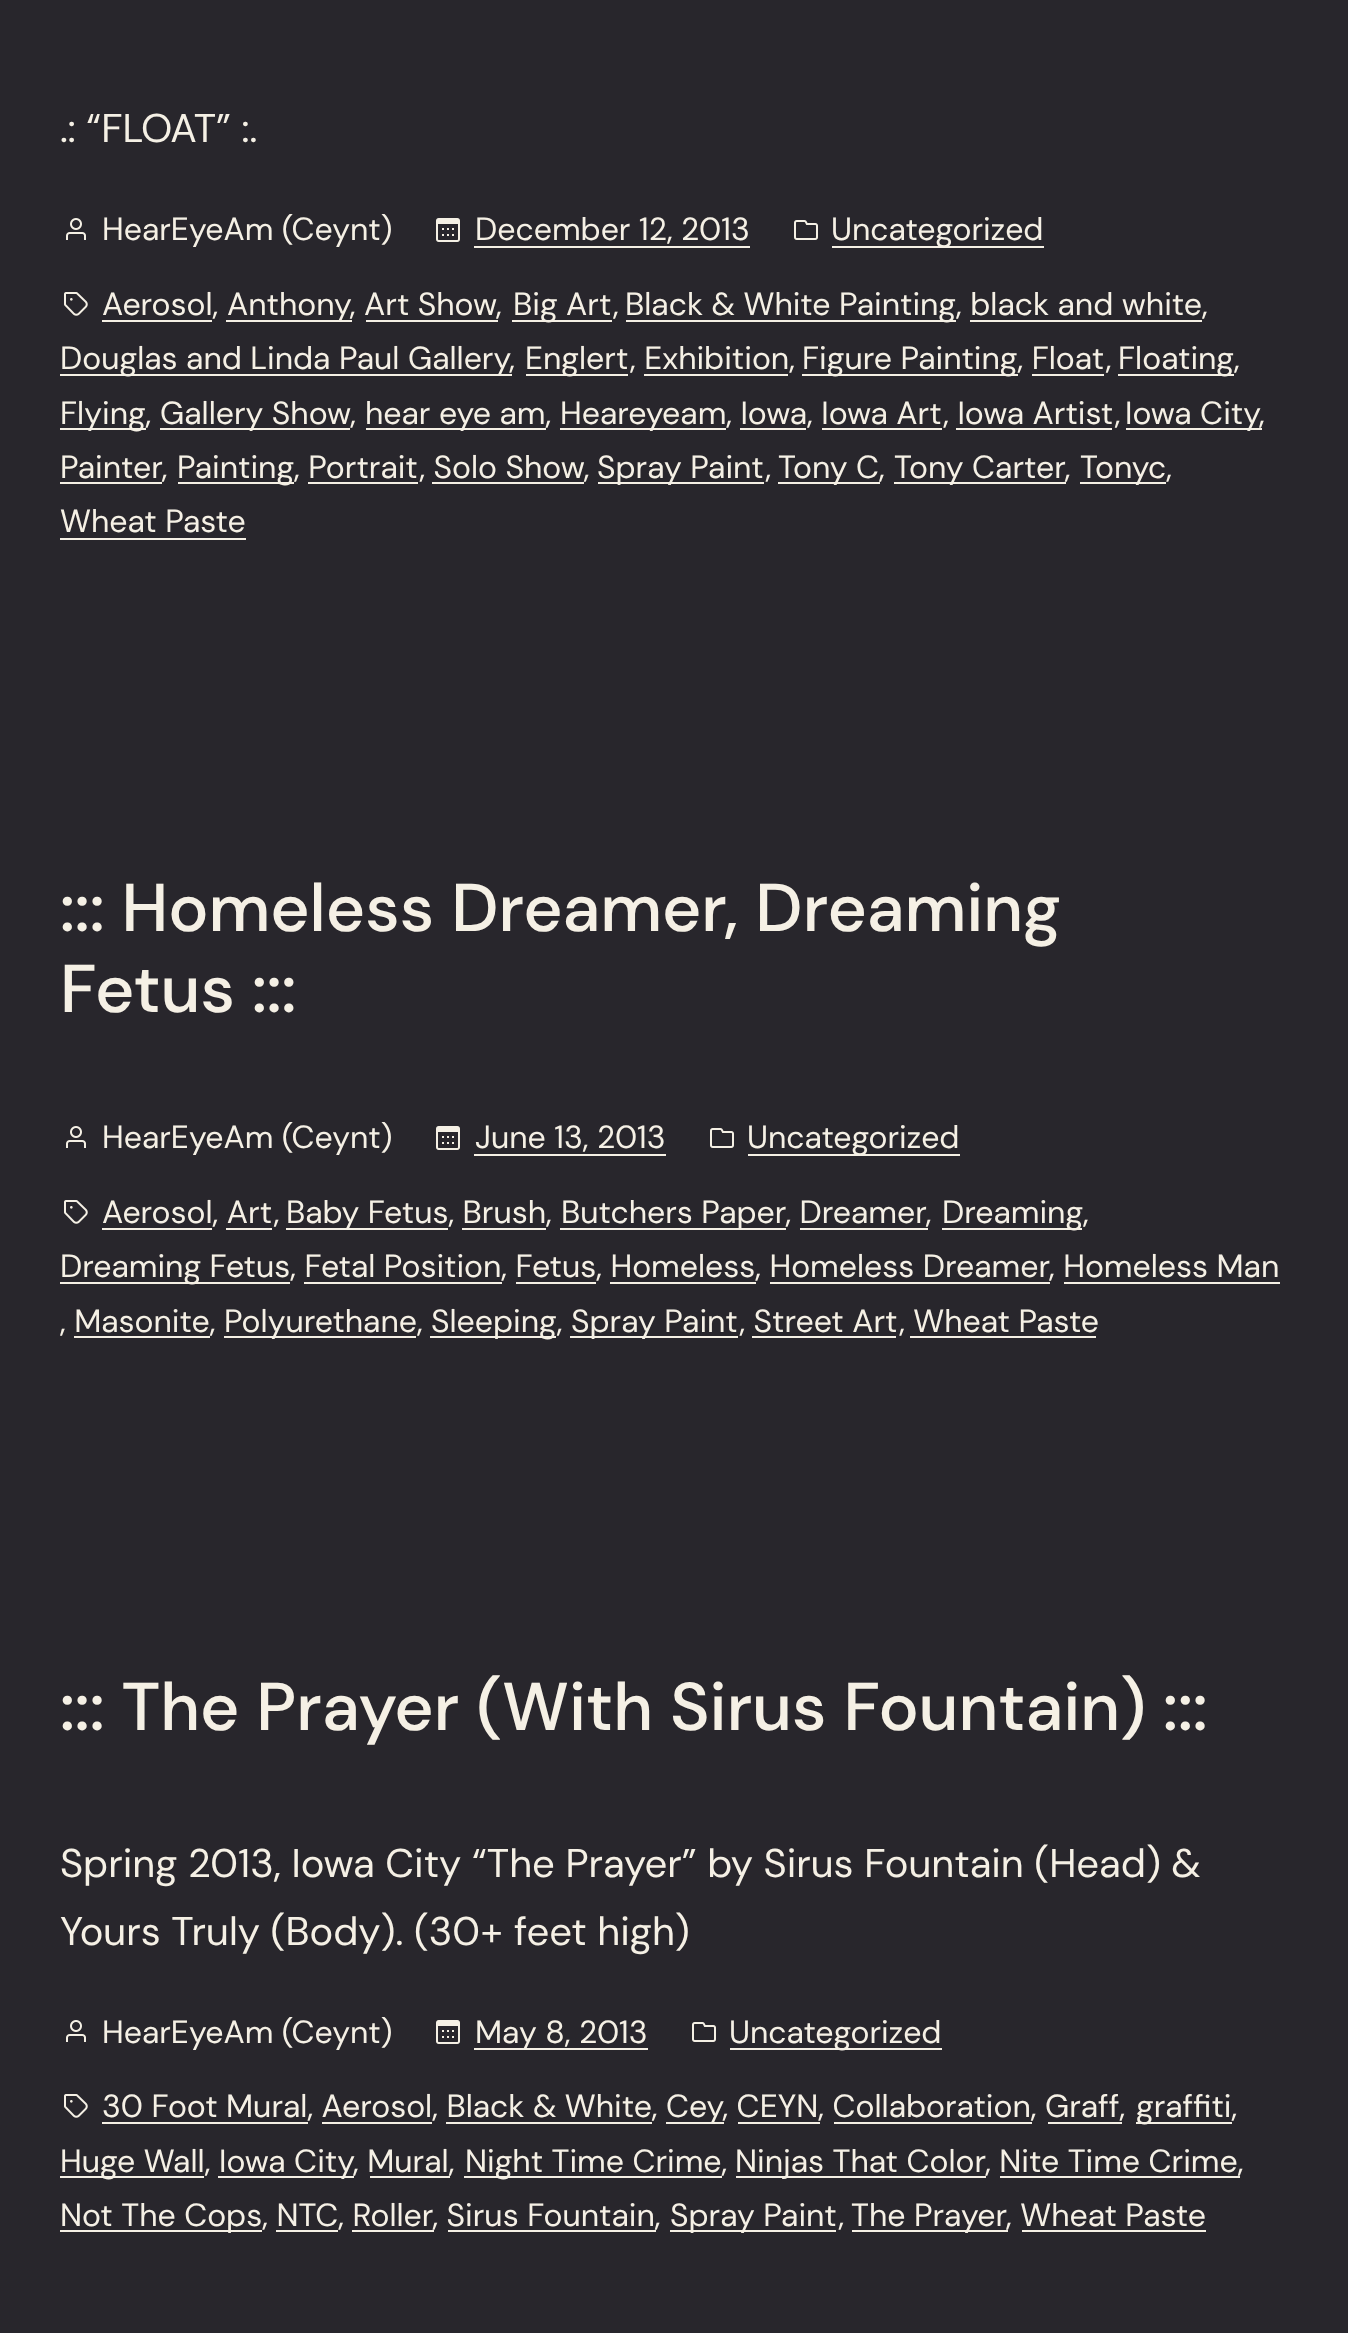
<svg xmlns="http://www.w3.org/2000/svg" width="1348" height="2333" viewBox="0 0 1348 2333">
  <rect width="100%" height="100%" fill="rgb(40,38,44)"/>
  <text x="60" y="142" font-family="DM Sans" font-size="40" fill="rgb(245,240,229)">.: “FLOAT” :.</text>
  <image x="66" y="218" width="20" height="22" href="pic1.png"/>
  <text x="102" y="240" font-family="DM Sans" font-size="32" fill="rgb(245,240,229)">HearEyeAm (Ceynt)</text>
  <image x="436" y="218" width="24" height="24" href="pic2.png"/>
  <text x="475" y="240" font-family="DM Sans" font-size="32" fill="rgb(245,240,229)">December 12, 2013</text>
  <rect x="474" y="246" width="276" height="2" fill="rgb(245,240,229)"/>
  <image x="794" y="220" width="24" height="20" href="pic3.png"/>
  <rect x="832" y="246" width="212" height="2" fill="rgb(245,240,229)"/>
  <text x="831" y="240" font-family="DM Sans" font-size="32" fill="rgb(245,240,229)">Uncategorized</text>
  <image x="64" y="292" width="24" height="24" href="pic4.png"/>
  <text x="102" y="315" font-family="DM Sans" font-size="32" fill="rgb(245,240,229)">Aerosol,</text>
  <rect x="102" y="320" width="110" height="2" fill="rgb(245,240,229)"/>
  <rect x="226" y="320" width="126" height="2" fill="rgb(245,240,229)"/>
  <text x="227" y="315" font-family="DM Sans" font-size="32" fill="rgb(245,240,229)">Anthony, Art Show,</text>
  <rect x="512" y="320" width="100" height="2" fill="rgb(245,240,229)"/>
  <text x="513" y="315" font-family="DM Sans" font-size="32" fill="rgb(245,240,229)">Big Art,</text>
  <rect x="626" y="320" width="330" height="2" fill="rgb(245,240,229)"/>
  <text x="625" y="315" font-family="DM Sans" font-size="32" fill="rgb(245,240,229)">Black &amp; White Painting, black and white,</text>
  <rect x="366" y="320" width="132" height="2" fill="rgb(245,240,229)"/>
  <rect x="970" y="320" width="232" height="2" fill="rgb(245,240,229)"/>
  <rect x="60" y="374" width="452" height="2" fill="rgb(245,240,229)"/>
  <text x="60" y="369" font-family="DM Sans" font-size="32" fill="rgb(245,240,229)">Douglas and Linda Paul Gallery,</text>
  <rect x="526" y="374" width="102" height="2" fill="rgb(245,240,229)"/>
  <text x="525" y="369" font-family="DM Sans" font-size="32" fill="rgb(245,240,229)">Englert, Exhibition,</text>
  <rect x="802" y="374" width="216" height="2" fill="rgb(245,240,229)"/>
  <text x="802" y="369" font-family="DM Sans" font-size="32" fill="rgb(245,240,229)">Figure Painting, Float,</text>
  <rect x="1118" y="374" width="116" height="2" fill="rgb(245,240,229)"/>
  <text x="1118" y="369" font-family="DM Sans" font-size="32" fill="rgb(245,240,229)">Floating,</text>
  <rect x="644" y="374" width="144" height="2" fill="rgb(245,240,229)"/>
  <rect x="1032" y="374" width="72" height="2" fill="rgb(245,240,229)"/>
  <rect x="60" y="428" width="86" height="2" fill="rgb(245,240,229)"/>
  <text x="60" y="424" font-family="DM Sans" font-size="32" fill="rgb(245,240,229)">Flying,</text>
  <rect x="160" y="428" width="190" height="2" fill="rgb(245,240,229)"/>
  <text x="160" y="424" font-family="DM Sans" font-size="32" fill="rgb(245,240,229)">Gallery Show,</text>
  <rect x="366" y="428" width="180" height="2" fill="rgb(245,240,229)"/>
  <text x="365" y="424" font-family="DM Sans" font-size="32" fill="rgb(245,240,229)">hear eye am,</text>
  <rect x="560" y="428" width="166" height="2" fill="rgb(245,240,229)"/>
  <text x="560" y="424" font-family="DM Sans" font-size="32" fill="rgb(245,240,229)">Heareyeam, Iowa, Iowa Art, Iowa Artist,</text>
  <rect x="1126" y="428" width="136" height="2" fill="rgb(245,240,229)"/>
  <text x="1125" y="424" font-family="DM Sans" font-size="32" fill="rgb(245,240,229)">Iowa City,</text>
  <rect x="740" y="428" width="66" height="2" fill="rgb(245,240,229)"/>
  <rect x="822" y="428" width="120" height="2" fill="rgb(245,240,229)"/>
  <rect x="956" y="428" width="156" height="2" fill="rgb(245,240,229)"/>
  <text x="60" y="478" font-family="DM Sans" font-size="32" fill="rgb(245,240,229)">Painter,</text>
  <rect x="60" y="482" width="102" height="2" fill="rgb(245,240,229)"/>
  <rect x="178" y="482" width="116" height="2" fill="rgb(245,240,229)"/>
  <text x="177" y="478" font-family="DM Sans" font-size="32" fill="rgb(245,240,229)">Painting, Portrait, Solo Show,</text>
  <rect x="598" y="482" width="166" height="2" fill="rgb(245,240,229)"/>
  <text x="597" y="478" font-family="DM Sans" font-size="32" fill="rgb(245,240,229)">Spray Paint,</text>
  <rect x="778" y="482" width="102" height="2" fill="rgb(245,240,229)"/>
  <text x="778" y="478" font-family="DM Sans" font-size="32" fill="rgb(245,240,229)">Tony C,</text>
  <rect x="894" y="482" width="172" height="2" fill="rgb(245,240,229)"/>
  <text x="894" y="478" font-family="DM Sans" font-size="32" fill="rgb(245,240,229)">Tony Carter,</text>
  <rect x="1080" y="482" width="86" height="2" fill="rgb(245,240,229)"/>
  <text x="1080" y="478" font-family="DM Sans" font-size="32" fill="rgb(245,240,229)">Tonyc,</text>
  <rect x="308" y="482" width="110" height="2" fill="rgb(245,240,229)"/>
  <rect x="432" y="482" width="152" height="2" fill="rgb(245,240,229)"/>
  <text x="60" y="532" font-family="DM Sans" font-size="32" fill="rgb(245,240,229)">Wheat Paste</text>
  <rect x="60" y="538" width="186" height="2" fill="rgb(245,240,229)"/>
  <g font-family="DM Sans" font-size="67.4" font-weight="500" fill="rgb(245,240,229)">
    <text>
      <tspan x="60" y="931">::: Homeless Dreamer, Dreaming</tspan>
      <tspan x="60" y="1012">Fetus :::</tspan>
    </text>
  </g>
  <image x="66" y="1126" width="20" height="22" href="pic1.png"/>
  <text x="102" y="1148" font-family="DM Sans" font-size="32" fill="rgb(245,240,229)">HearEyeAm (Ceynt)</text>
  <image x="436" y="1126" width="24" height="24" href="pic2.png"/>
  <text x="475" y="1148" font-family="DM Sans" font-size="32" fill="rgb(245,240,229)">June 13, 2013</text>
  <rect x="474" y="1154" width="192" height="2" fill="rgb(245,240,229)"/>
  <image x="710" y="1128" width="24" height="20" href="pic3.png"/>
  <rect x="748" y="1154" width="212" height="2" fill="rgb(245,240,229)"/>
  <text x="747" y="1148" font-family="DM Sans" font-size="32" fill="rgb(245,240,229)">Uncategorized</text>
  <image x="64" y="1200" width="24" height="24" href="pic4.png"/>
  <text x="102" y="1223" font-family="DM Sans" font-size="32" fill="rgb(245,240,229)">Aerosol, Art,</text>
  <rect x="102" y="1228" width="110" height="2" fill="rgb(245,240,229)"/>
  <rect x="286" y="1228" width="162" height="2" fill="rgb(245,240,229)"/>
  <text x="286" y="1223" font-family="DM Sans" font-size="32" fill="rgb(245,240,229)">Baby Fetus, Brush,</text>
  <rect x="560" y="1228" width="226" height="2" fill="rgb(245,240,229)"/>
  <text x="561" y="1223" font-family="DM Sans" font-size="32" fill="rgb(245,240,229)">Butchers Paper, Dreamer,</text>
  <rect x="942" y="1228" width="140" height="2" fill="rgb(245,240,229)"/>
  <text x="942" y="1223" font-family="DM Sans" font-size="32" fill="rgb(245,240,229)">Dreaming,</text>
  <rect x="226" y="1228" width="46" height="2" fill="rgb(245,240,229)"/>
  <rect x="462" y="1228" width="84" height="2" fill="rgb(245,240,229)"/>
  <rect x="800" y="1228" width="128" height="2" fill="rgb(245,240,229)"/>
  <rect x="60" y="1282" width="230" height="2" fill="rgb(245,240,229)"/>
  <text x="60" y="1277" font-family="DM Sans" font-size="32" fill="rgb(245,240,229)">Dreaming Fetus, Fetal Position, Fetus, Homeless, Homeless Dreamer, Homeless Man</text>
  <rect x="304" y="1282" width="198" height="2" fill="rgb(245,240,229)"/>
  <rect x="516" y="1282" width="80" height="2" fill="rgb(245,240,229)"/>
  <rect x="610" y="1282" width="146" height="2" fill="rgb(245,240,229)"/>
  <rect x="770" y="1282" width="280" height="2" fill="rgb(245,240,229)"/>
  <rect x="1064" y="1282" width="216" height="2" fill="rgb(245,240,229)"/>
  <text x="60" y="1332" font-family="DM Sans" font-size="32" fill="rgb(245,240,229)">, Masonite,</text>
  <rect x="224" y="1336" width="192" height="2" fill="rgb(245,240,229)"/>
  <text x="224" y="1332" font-family="DM Sans" font-size="32" fill="rgb(245,240,229)">Polyurethane,</text>
  <rect x="430" y="1336" width="126" height="2" fill="rgb(245,240,229)"/>
  <text x="431" y="1332" font-family="DM Sans" font-size="32" fill="rgb(245,240,229)">Sleeping,</text>
  <rect x="570" y="1336" width="168" height="2" fill="rgb(245,240,229)"/>
  <text x="571" y="1332" font-family="DM Sans" font-size="32" fill="rgb(245,240,229)">Spray Paint, Street Art, Wheat Paste</text>
  <rect x="74" y="1336" width="136" height="2" fill="rgb(245,240,229)"/>
  <rect x="752" y="1336" width="144" height="2" fill="rgb(245,240,229)"/>
  <rect x="910" y="1336" width="186" height="2" fill="rgb(245,240,229)"/>
  <text x="60" y="1730" font-family="DM Sans" font-size="67.4" font-weight="500" fill="rgb(245,240,229)">::: The Prayer (With Sirus Fountain) :::</text>
  <g font-family="DM Sans" font-size="40" fill="rgb(245,240,229)">
    <text>
      <tspan x="60" y="1877">Spring 2013, Iowa City “The Prayer” by Sirus Fountain (Head) &amp;</tspan>
      <tspan x="60" y="1945">Yours Truly (Body). (30+ feet high)</tspan>
    </text>
  </g>
  <image x="66" y="2020" width="20" height="22" href="pic1.png"/>
  <text x="102" y="2043" font-family="DM Sans" font-size="32" fill="rgb(245,240,229)">HearEyeAm (Ceynt)</text>
  <image x="436" y="2020" width="24" height="24" href="pic2.png"/>
  <rect x="474" y="2048" width="174" height="2" fill="rgb(245,240,229)"/>
  <text x="475" y="2043" font-family="DM Sans" font-size="32" fill="rgb(245,240,229)">May 8, 2013</text>
  <image x="692" y="2022" width="24" height="20" href="pic3.png"/>
  <rect x="730" y="2048" width="212" height="2" fill="rgb(245,240,229)"/>
  <text x="729" y="2043" font-family="DM Sans" font-size="32" fill="rgb(245,240,229)">Uncategorized</text>
  <image x="64" y="2094" width="24" height="24" href="pic4.png"/>
  <text x="102" y="2117" font-family="DM Sans" font-size="32" fill="rgb(245,240,229)">30 Foot Mural, Aerosol, Black &amp; White,</text>
  <rect x="102" y="2122" width="206" height="2" fill="rgb(245,240,229)"/>
  <rect x="666" y="2122" width="58" height="2" fill="rgb(245,240,229)"/>
  <text x="666" y="2117" font-family="DM Sans" font-size="32" fill="rgb(245,240,229)">Cey, CEYN, Collaboration, Graff,</text>
  <rect x="1136" y="2122" width="96" height="2" fill="rgb(245,240,229)"/>
  <text x="1136" y="2117" font-family="DM Sans" font-size="32" fill="rgb(245,240,229)">graffiti,</text>
  <rect x="322" y="2122" width="110" height="2" fill="rgb(245,240,229)"/>
  <rect x="446" y="2122" width="206" height="2" fill="rgb(245,240,229)"/>
  <rect x="738" y="2122" width="82" height="2" fill="rgb(245,240,229)"/>
  <rect x="834" y="2122" width="198" height="2" fill="rgb(245,240,229)"/>
  <rect x="1048" y="2122" width="74" height="2" fill="rgb(245,240,229)"/>
  <rect x="60" y="2176" width="144" height="2" fill="rgb(245,240,229)"/>
  <text x="60" y="2172" font-family="DM Sans" font-size="32" fill="rgb(245,240,229)">Huge Wall,</text>
  <rect x="218" y="2176" width="136" height="2" fill="rgb(245,240,229)"/>
  <text x="219" y="2172" font-family="DM Sans" font-size="32" fill="rgb(245,240,229)">Iowa City, Mural,</text>
  <rect x="464" y="2176" width="258" height="2" fill="rgb(245,240,229)"/>
  <text x="465" y="2172" font-family="DM Sans" font-size="32" fill="rgb(245,240,229)">Night Time Crime,</text>
  <rect x="736" y="2176" width="250" height="2" fill="rgb(245,240,229)"/>
  <text x="735" y="2172" font-family="DM Sans" font-size="32" fill="rgb(245,240,229)">Ninjas That Color, Nite Time Crime,</text>
  <rect x="370" y="2176" width="80" height="2" fill="rgb(245,240,229)"/>
  <rect x="1000" y="2176" width="240" height="2" fill="rgb(245,240,229)"/>
  <rect x="60" y="2230" width="202" height="2" fill="rgb(245,240,229)"/>
  <text x="60" y="2226" font-family="DM Sans" font-size="32" fill="rgb(245,240,229)">Not The Cops, NTC, Roller, Sirus Fountain,</text>
  <rect x="670" y="2230" width="166" height="2" fill="rgb(245,240,229)"/>
  <text x="670" y="2226" font-family="DM Sans" font-size="32" fill="rgb(245,240,229)">Spray Paint,</text>
  <rect x="852" y="2230" width="156" height="2" fill="rgb(245,240,229)"/>
  <text x="851" y="2226" font-family="DM Sans" font-size="32" fill="rgb(245,240,229)">The Prayer, Wheat Paste</text>
  <rect x="276" y="2230" width="62" height="2" fill="rgb(245,240,229)"/>
  <rect x="352" y="2230" width="82" height="2" fill="rgb(245,240,229)"/>
  <rect x="448" y="2230" width="208" height="2" fill="rgb(245,240,229)"/>
  <rect x="1022" y="2230" width="184" height="2" fill="rgb(245,240,229)"/>
</svg>
